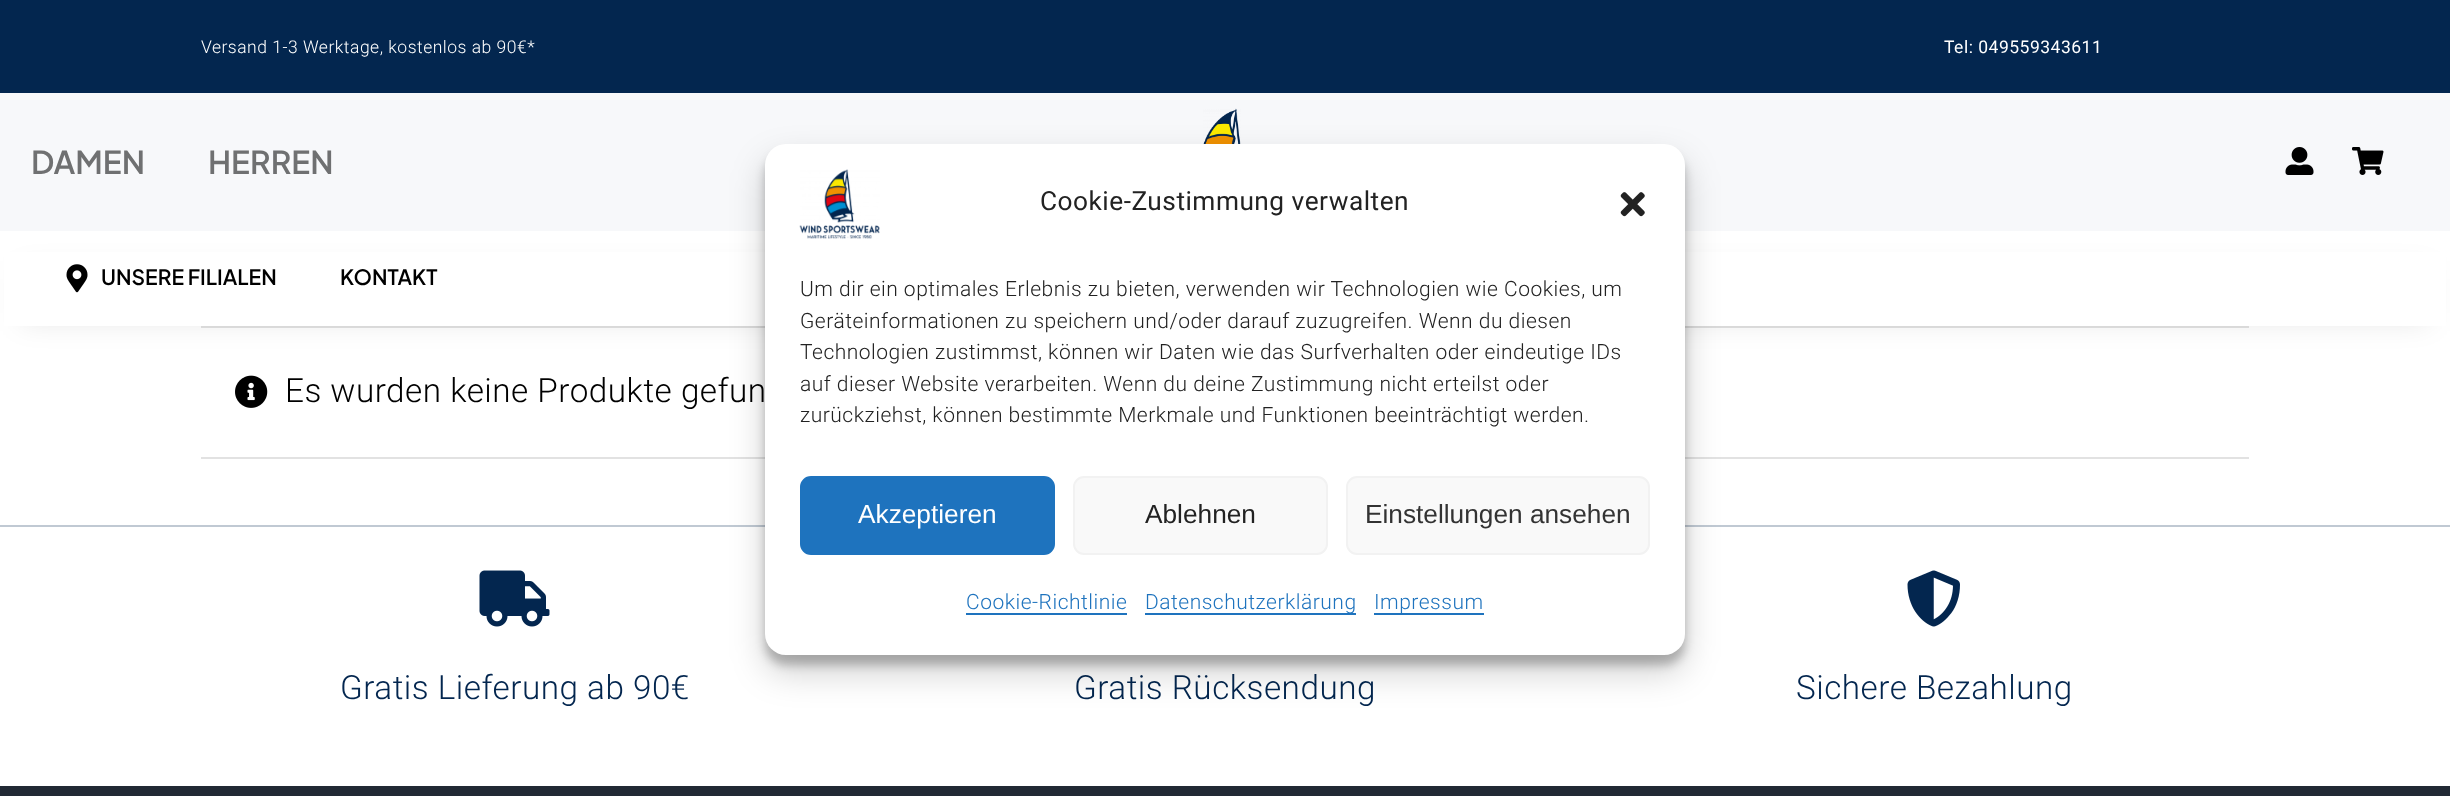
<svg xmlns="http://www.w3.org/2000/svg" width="2450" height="796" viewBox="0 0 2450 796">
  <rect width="100%" height="100%" fill="rgb(255,255,255)"/>
  <rect x="0" y="0" width="2450" height="93" fill="rgb(3,38,79)"/>
  <text x="201" y="53" font-family="Roboto" font-size="17.5" font-weight="300" letter-spacing="0.5" fill="rgb(255,255,255)">Versand 1-3 Werktage, kostenlos ab 90€*</text>
  <text x="1944" y="53" font-family="Roboto" font-size="17.5" letter-spacing="0.5" fill="rgb(255,255,255)">Tel: 049559343611</text>
  <rect x="201" y="326" width="2048" height="2" fill="rgb(226,226,226)"/>
  <rect x="21" y="270" width="2408" height="52" fill="rgba(0,0,0,0.1)" filter="blur(14px)"/>
  <rect x="0" y="93" width="2450" height="138" fill="rgb(247,248,250)"/>
  <image x="1203" y="108" width="38" height="36" href="pic1.png"/>
  <g font-family="Plus Jakarta Sans" font-size="31.5" font-weight="600" fill="rgb(111,112,113)">
    <text x="31" y="174">DAMEN</text>
    <text x="208" y="174">HERREN</text>
  </g>
  <image x="2285" y="147" width="29" height="28" href="pic2.png"/>
  <image x="2352" y="147" width="32" height="28" href="pic3.png"/>
  <rect x="4" y="252" width="2442" height="74" fill="rgb(255,255,255)"/>
  <image x="66" y="264" width="22" height="29" href="pic4.png"/>
  <g font-family="Plus Jakarta Sans" font-size="21" font-weight="600" fill="rgb(0,0,0)">
    <text x="101" y="285">UNSERE FILIALEN</text>
    <text x="340" y="285">KONTAKT</text>
  </g>
  <rect x="201" y="457" width="2048" height="2" fill="rgb(226,226,226)"/>
  <image x="235" y="375" width="33" height="33" href="pic5.png"/>
  <text x="285" y="402" font-family="Roboto" font-size="33.25" font-weight="300" letter-spacing="0.5" fill="rgb(0,0,0)">Es wurden keine Produkte gefun</text>
  <rect x="0" y="525" width="2450" height="2" fill="rgb(192,201,211)"/>
  <image x="479" y="570" width="71" height="57" href="pic6.png"/>
  <g font-family="Roboto" font-size="33.25" font-weight="300" letter-spacing="0.5" fill="rgb(3,38,79)">
    <text x="340" y="699">Gratis Lieferung ab 90€</text>
    <text x="1074" y="699">Gratis Rücksendung</text>
  </g>
  <image x="1907" y="570" width="53" height="57" href="pic7.png"/>
  <text x="1796" y="699" font-family="Roboto" font-size="33.25" font-weight="300" letter-spacing="0.5" fill="rgb(3,38,79)">Sichere Bezahlung</text>
  <rect x="0" y="786" width="2450" height="10" fill="rgb(33,41,52)"/>
  <rect x="765" y="154" width="920" height="511" rx="21" fill="rgba(0,0,0,0.23)" filter="blur(5px)"/>
  <rect x="765" y="161" width="920" height="511" rx="21" fill="rgba(0,0,0,0.19)" filter="blur(17.5px)"/>
  <rect x="765" y="144" width="920" height="511" rx="21" fill="rgb(255,255,255)"/>
  <image x="799" y="169" width="81" height="70" href="pic8.png"/>
  <text x="1040" y="210" font-family="Roboto" font-size="26.25" letter-spacing="0.5" fill="rgb(34,34,34)">Cookie-Zustimmung verwalten</text>
  <image x="1620" y="192" width="25" height="25" href="pic9.png"/>
  <g font-family="Roboto" font-size="21" font-weight="300" letter-spacing="0.5" fill="rgb(34,34,34)">
    <text>
      <tspan x="800" y="296">Um dir ein optimales Erlebnis zu bieten, verwenden wir Technologien wie Cookies, um</tspan>
      <tspan x="800" y="328">Geräteinformationen zu speichern und/oder darauf zuzugreifen. Wenn du diesen</tspan>
      <tspan x="800" y="359">Technologien zustimmst, können wir Daten wie das Surfverhalten oder eindeutige IDs</tspan>
      <tspan x="800" y="391">auf dieser Website verarbeiten. Wenn du deine Zustimmung nicht erteilst oder</tspan>
      <tspan x="800" y="422">zurückziehst, können bestimmte Merkmale und Funktionen beeinträchtigt werden.</tspan>
    </text>
  </g>
  <rect x="801" y="477" width="253" height="77" rx="10" fill="rgb(30,115,190)" stroke="rgb(30,115,190)" stroke-width="2"/>
  <text x="858" y="523" font-family="Liberation Sans" font-size="26.25" fill="rgb(255,255,255)">Akzeptieren</text>
  <rect x="1074" y="477" width="253" height="77" rx="10" fill="rgb(249,249,249)" stroke="rgb(242,242,242)" stroke-width="2"/>
  <text x="1145" y="523" font-family="Liberation Sans" font-size="26.25" fill="rgb(34,34,34)">Ablehnen</text>
  <rect x="1347" y="477" width="302" height="77" rx="10" fill="rgb(249,249,249)" stroke="rgb(242,242,242)" stroke-width="2"/>
  <text x="1365" y="523" font-family="Liberation Sans" font-size="26.25" fill="rgb(51,51,51)">Einstellungen ansehen</text>
  <text x="966" y="609" font-family="Roboto" font-size="21" font-weight="300" letter-spacing="0.5" fill="rgb(30,115,190)">Cookie-Richtlinie</text>
  <rect x="966" y="613" width="161" height="2" fill="rgb(30,115,190)"/>
  <rect x="1145" y="613" width="211" height="2" fill="rgb(30,115,190)"/>
  <text x="1145" y="609" font-family="Roboto" font-size="21" font-weight="300" letter-spacing="0.5" fill="rgb(30,115,190)">Datenschutzerklärung</text>
  <rect x="1374" y="613" width="110" height="2" fill="rgb(30,115,190)"/>
  <text x="1374" y="609" font-family="Roboto" font-size="21" font-weight="300" letter-spacing="0.5" fill="rgb(30,115,190)">Impressum</text>
</svg>
